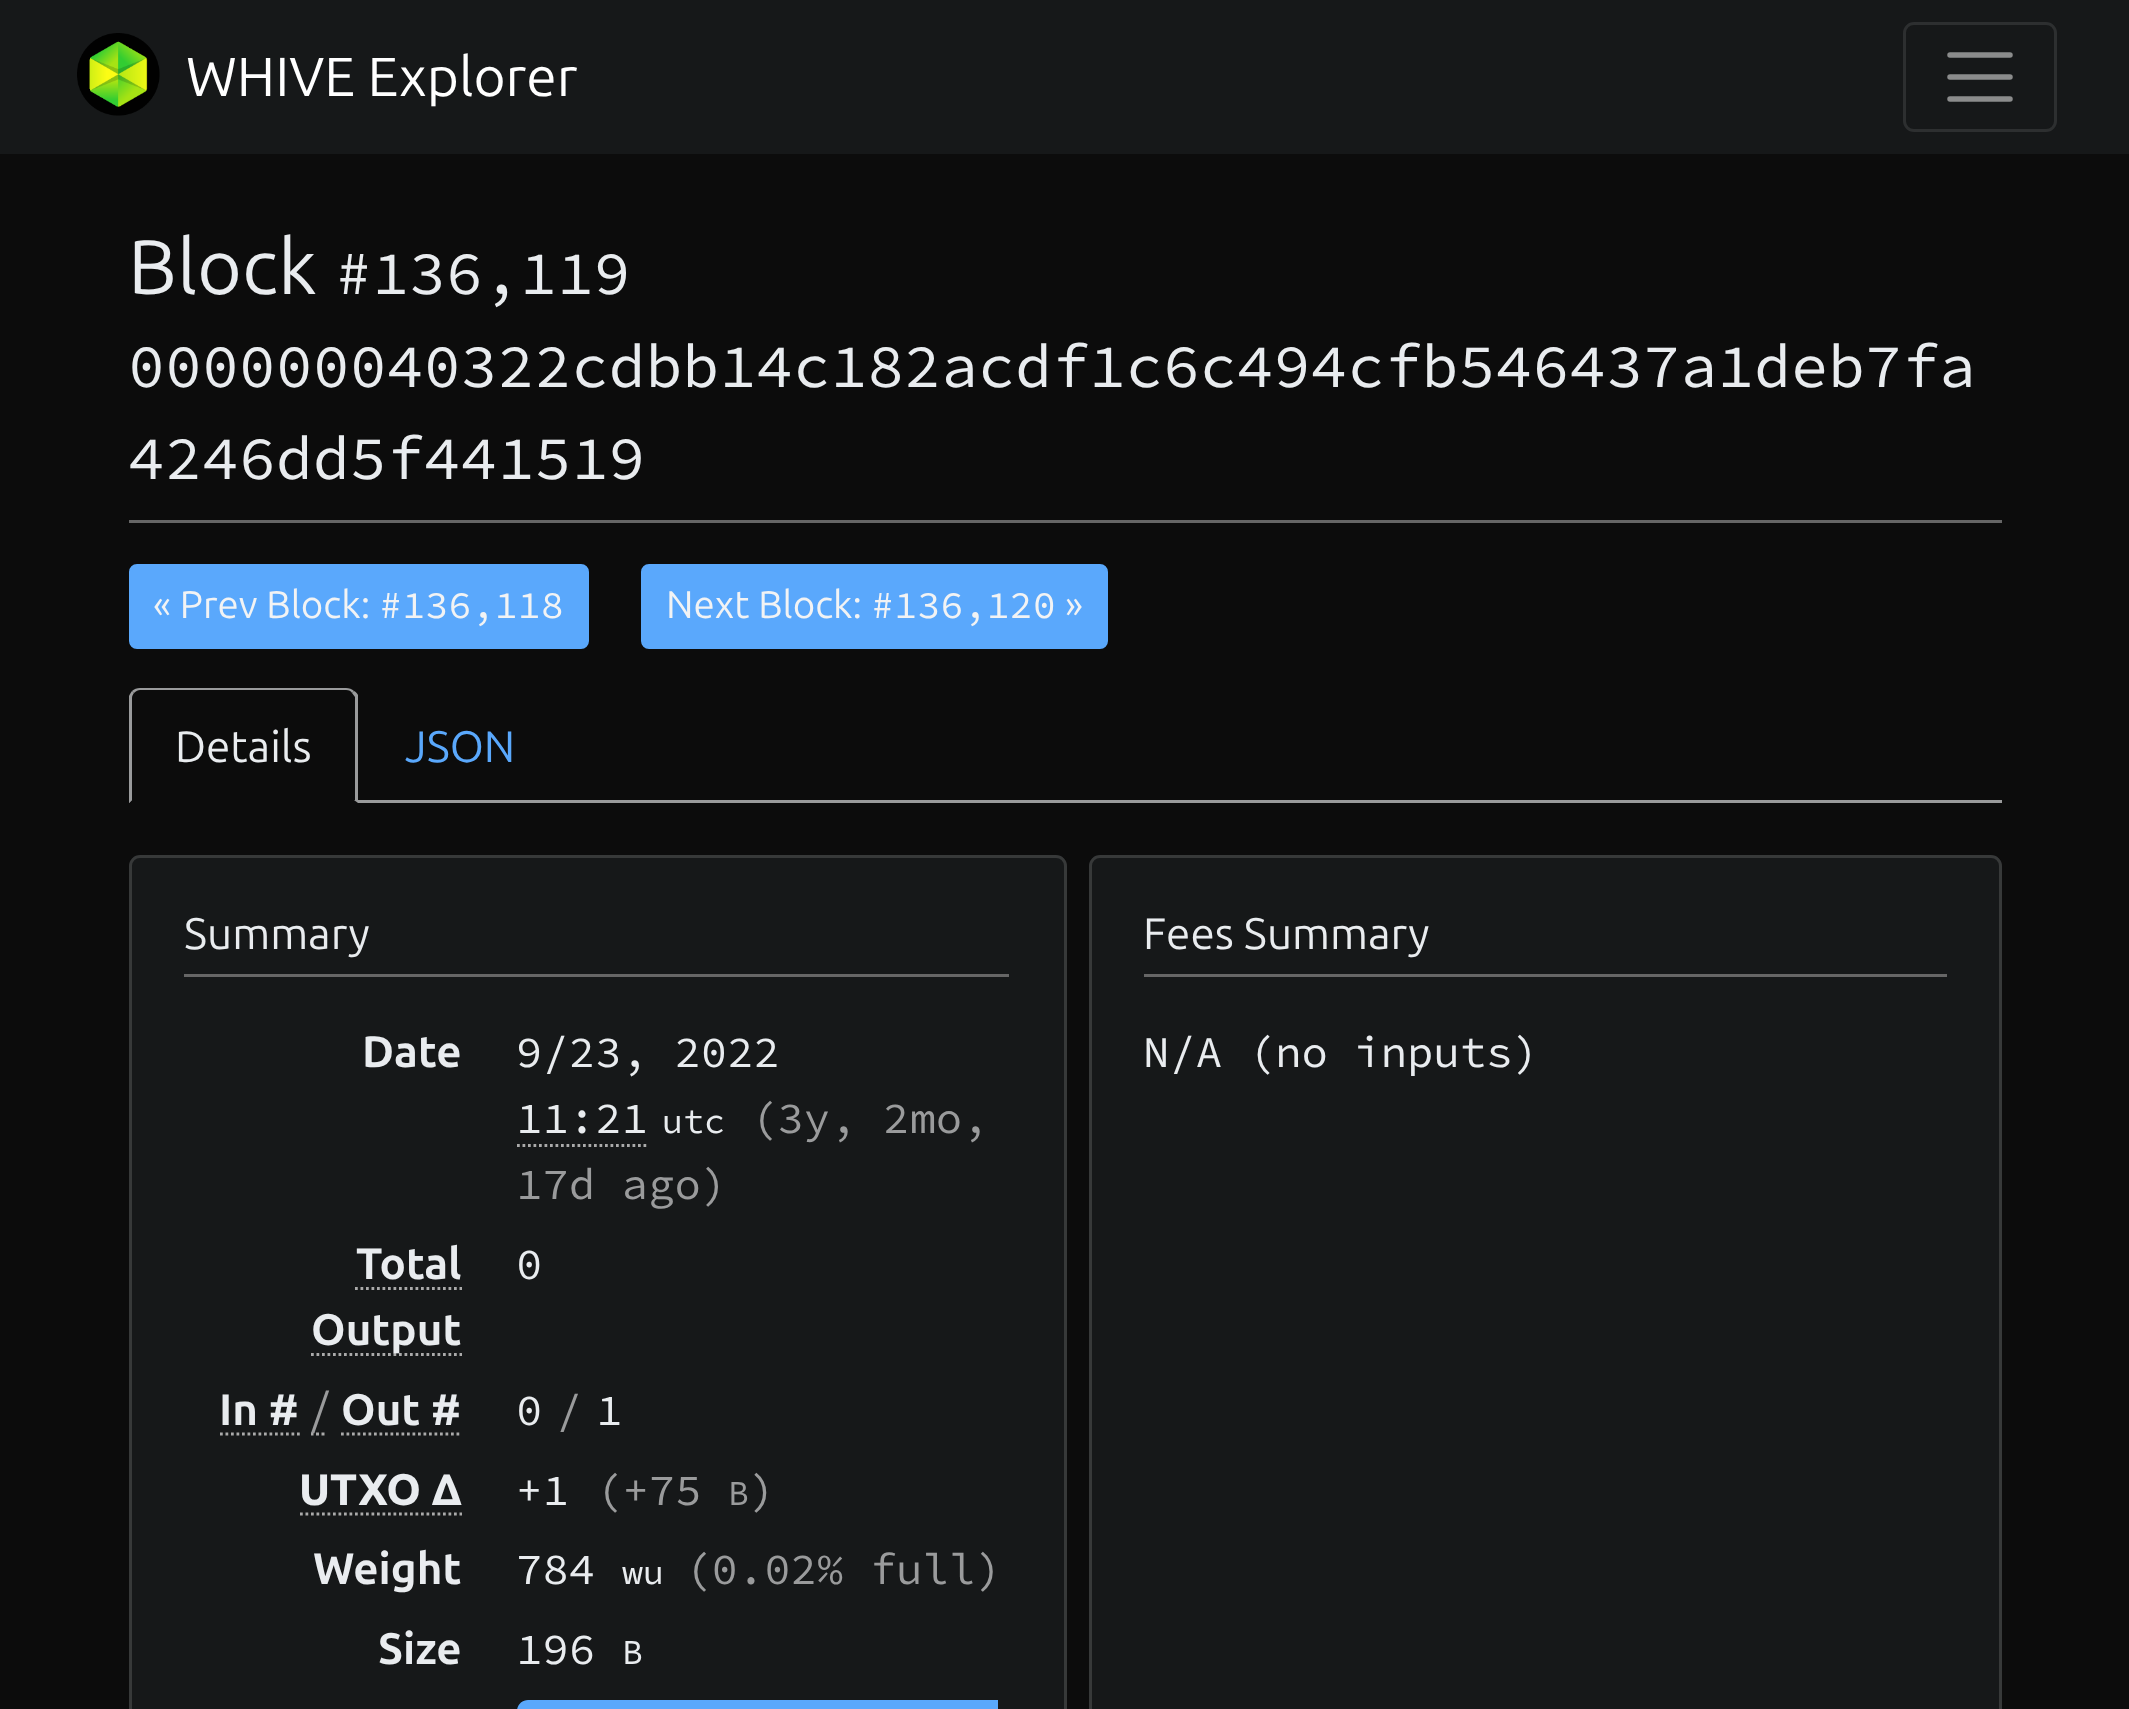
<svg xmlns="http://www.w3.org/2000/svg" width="2129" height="1709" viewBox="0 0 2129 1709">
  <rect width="100%" height="100%" fill="rgb(22,24,25)"/>
  <image x="77" y="33" width="83" height="83" href="pic1.png"/>
  <text x="186" y="96" font-family="Ubuntu" font-size="55" fill="rgb(255,255,255)">WHIVE Explorer</text>
  <rect x="1904.5" y="23.5" width="151" height="107" rx="9.5" fill="none" stroke="rgb(45,47,48)" stroke-width="3"/>
  <path d="M1950 55H2010M1950 77H2010M1950 99H2010" fill="none" stroke="rgb(139,140,140)" stroke-width="5.5" stroke-linecap="round"/>
  <rect x="0" y="154" width="2129" height="1555" fill="rgb(12,12,12)"/>
  <text x="128" y="294" font-family="Ubuntu" font-size="77" fill="rgb(233,236,239)">Block</text>
  <g font-family="Source Code Pro" font-size="61.6" fill="rgb(233,236,239)">
    <text x="335" y="294">#136,119</text>
    <text>
      <tspan x="128" y="387">000000040322cdbb14c182acdf1c6c494cfb546437a1deb7fa</tspan>
      <tspan x="128" y="479">4246dd5f441519</tspan>
    </text>
  </g>
  <rect x="129" y="520" width="1873" height="3" fill="rgb(102,102,102)"/>
  <rect x="130.5" y="565.5" width="457" height="82" rx="6.5" fill="rgb(90,168,252)" stroke="rgb(90,168,252)" stroke-width="3"/>
  <text x="153" y="618" font-family="Ubuntu" font-size="38.5" fill="rgb(242,243,244)">« Prev Block:</text>
  <text x="379" y="618" font-family="Source Code Pro" font-size="38.5" fill="rgb(242,243,244)">#136,118</text>
  <rect x="642.5" y="565.5" width="464" height="82" rx="6.5" fill="rgb(90,168,252)" stroke="rgb(90,168,252)" stroke-width="3"/>
  <text x="666" y="618" font-family="Ubuntu" font-size="38.5" fill="rgb(242,243,244)">Next Block:</text>
  <text x="871" y="618" font-family="Source Code Pro" font-size="38.5" fill="rgb(242,243,244)">#136,120</text>
  <text x="1065" y="618" font-family="Ubuntu" font-size="38.5" fill="rgb(242,243,244)">»</text>
  <rect x="129" y="800" width="1873" height="3" fill="rgb(154,155,156)"/>
  <path d="M140 688C137 688 134 689 132 691L134 693C136 691 138 690 140 690H346C349 690 351 691 352 693L354 691C352 689 349 688 346 688Z" fill="rgb(154,155,156)"/>
  <path d="M354 691C356 692 357 693 358 695V803L354 800H355V697L352 693Z" fill="rgb(154,155,156)"/>
  <path d="M358 803L354 800H132L129 803Z" fill="rgb(12,12,12)"/>
  <path d="M129 803L132 800V698C132 696 133 694 134 693L132 691C131 692 130 694 129 696Z" fill="rgb(154,155,156)"/>
  <text x="175" y="762" font-family="Ubuntu" font-size="44" fill="rgb(233,236,239)">Details</text>
  <text x="405" y="762" font-family="Ubuntu" font-size="44" fill="rgb(90,168,252)">JSON</text>
  <rect x="129" y="855" width="938" height="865" rx="11" fill="rgb(22,24,25)"/>
  <rect x="130.5" y="856.5" width="935" height="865" rx="9.5" fill="none" stroke="rgba(154,155,156,0.25)" stroke-width="3"/>
  <text x="184" y="949" font-family="Ubuntu" font-size="44" fill="rgb(233,236,239)">Summary</text>
  <rect x="184" y="974" width="825" height="3" fill="rgb(102,102,102)"/>
  <text x="362" y="1067" font-family="Ubuntu" font-size="44" font-weight="bold" fill="rgb(233,236,239)">Date</text>
  <g font-family="Source Code Pro" font-size="44" fill="rgb(233,236,239)">
    <text>
      <tspan x="516" y="1067">9/23, 2022</tspan>
      <tspan x="516" y="1133">11:21</tspan>
    </text>
  </g>
  <path d="M517 1145.5H649" fill="none" stroke="rgb(170,170,170)" stroke-width="2.8" stroke-dasharray="2.75 2.75"/>
  <text x="662" y="1133" font-family="Source Code Pro" font-size="35" fill="rgb(233,236,239)">utc</text>
  <g font-family="Source Code Pro" font-size="44" fill="rgb(154,155,156)">
    <text x="751" y="1133">(3y, 2mo,</text>
    <text x="516" y="1199">17d ago)</text>
  </g>
  <text x="356" y="1279" font-family="Ubuntu" font-size="44" font-weight="bold" fill="rgb(233,236,239)">Total</text>
  <path d="M355 1288.5H462" fill="none" stroke="rgb(170,170,170)" stroke-width="2.8" stroke-dasharray="2.75 2.75"/>
  <path d="M311 1354.5H462" fill="none" stroke="rgb(170,170,170)" stroke-width="2.8" stroke-dasharray="2.75 2.75"/>
  <text x="311" y="1345" font-family="Ubuntu" font-size="44" font-weight="bold" fill="rgb(233,236,239)">Output</text>
  <text x="516" y="1279" font-family="Source Code Pro" font-size="44" fill="rgb(233,236,239)">0</text>
  <text x="219" y="1425" font-family="Ubuntu" font-size="44" font-weight="bold" fill="rgb(233,236,239)">In #</text>
  <path d="M220 1434H300" fill="none" stroke="rgb(170,170,170)" stroke-width="2.8" stroke-dasharray="2.75 2.75"/>
  <path d="M311 1434H313.5M316 1434H319M321.5 1434H324.5" fill="none" stroke="rgb(170,170,170)" stroke-width="2.8"/>
  <text x="312" y="1425" font-family="Ubuntu" font-size="44" fill="rgb(154,155,156)">/</text>
  <text x="341" y="1425" font-family="Ubuntu" font-size="44" font-weight="bold" fill="rgb(233,236,239)">Out #</text>
  <path d="M341 1434H462" fill="none" stroke="rgb(170,170,170)" stroke-width="2.8" stroke-dasharray="2.75 2.75"/>
  <text x="516" y="1425" font-family="Source Code Pro" font-size="44" fill="rgb(233,236,239)">0</text>
  <text x="556" y="1425" font-family="Source Code Pro" font-size="44" fill="rgb(154,155,156)">/</text>
  <text x="596" y="1425" font-family="Source Code Pro" font-size="44" fill="rgb(233,236,239)">1</text>
  <text x="299" y="1505" font-family="Ubuntu" font-size="44" font-weight="800" fill="rgb(233,236,239)">UTXO Δ</text>
  <path d="M300 1514H462" fill="none" stroke="rgb(170,170,170)" stroke-width="2.8" stroke-dasharray="2.75 2.75"/>
  <text x="516" y="1505" font-family="Source Code Pro" font-size="44" fill="rgb(233,236,239)">+1</text>
  <text x="596" y="1505" font-family="Source Code Pro" font-size="44" fill="rgb(154,155,156)">(+75</text>
  <text x="728" y="1505" font-family="Source Code Pro" font-size="35" fill="rgb(154,155,156)">B</text>
  <text x="749" y="1505" font-family="Source Code Pro" font-size="44" fill="rgb(154,155,156)">)</text>
  <text x="313" y="1584" font-family="Ubuntu" font-size="44" font-weight="bold" fill="rgb(233,236,239)">Weight</text>
  <text x="516" y="1584" font-family="Source Code Pro" font-size="44" fill="rgb(233,236,239)">784</text>
  <text x="622" y="1584" font-family="Source Code Pro" font-size="35" fill="rgb(233,236,239)">wu</text>
  <text x="685" y="1584" font-family="Source Code Pro" font-size="44" fill="rgb(154,155,156)">(0.02% full)</text>
  <text x="378" y="1664" font-family="Ubuntu" font-size="44" font-weight="bold" fill="rgb(233,236,239)">Size</text>
  <text x="516" y="1664" font-family="Source Code Pro" font-size="44" fill="rgb(233,236,239)">196</text>
  <text x="622" y="1664" font-family="Source Code Pro" font-size="35" fill="rgb(233,236,239)">B</text>
  <path d="M528 1700H998V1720H528C522 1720 517 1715 517 1709V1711C517 1705 522 1700 528 1700Z" fill="rgb(90,168,252)"/>
  <rect x="1089" y="855" width="913" height="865" rx="11" fill="rgb(22,24,25)"/>
  <rect x="1090.5" y="856.5" width="910" height="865" rx="9.5" fill="none" stroke="rgba(154,155,156,0.25)" stroke-width="3"/>
  <text x="1143" y="949" font-family="Ubuntu" font-size="44" fill="rgb(233,236,239)">Fees Summary</text>
  <rect x="1144" y="974" width="803" height="3" fill="rgb(102,102,102)"/>
  <text x="1143" y="1067" font-family="Source Code Pro" font-size="44" fill="rgb(233,236,239)">N/A (no inputs)</text>
</svg>
